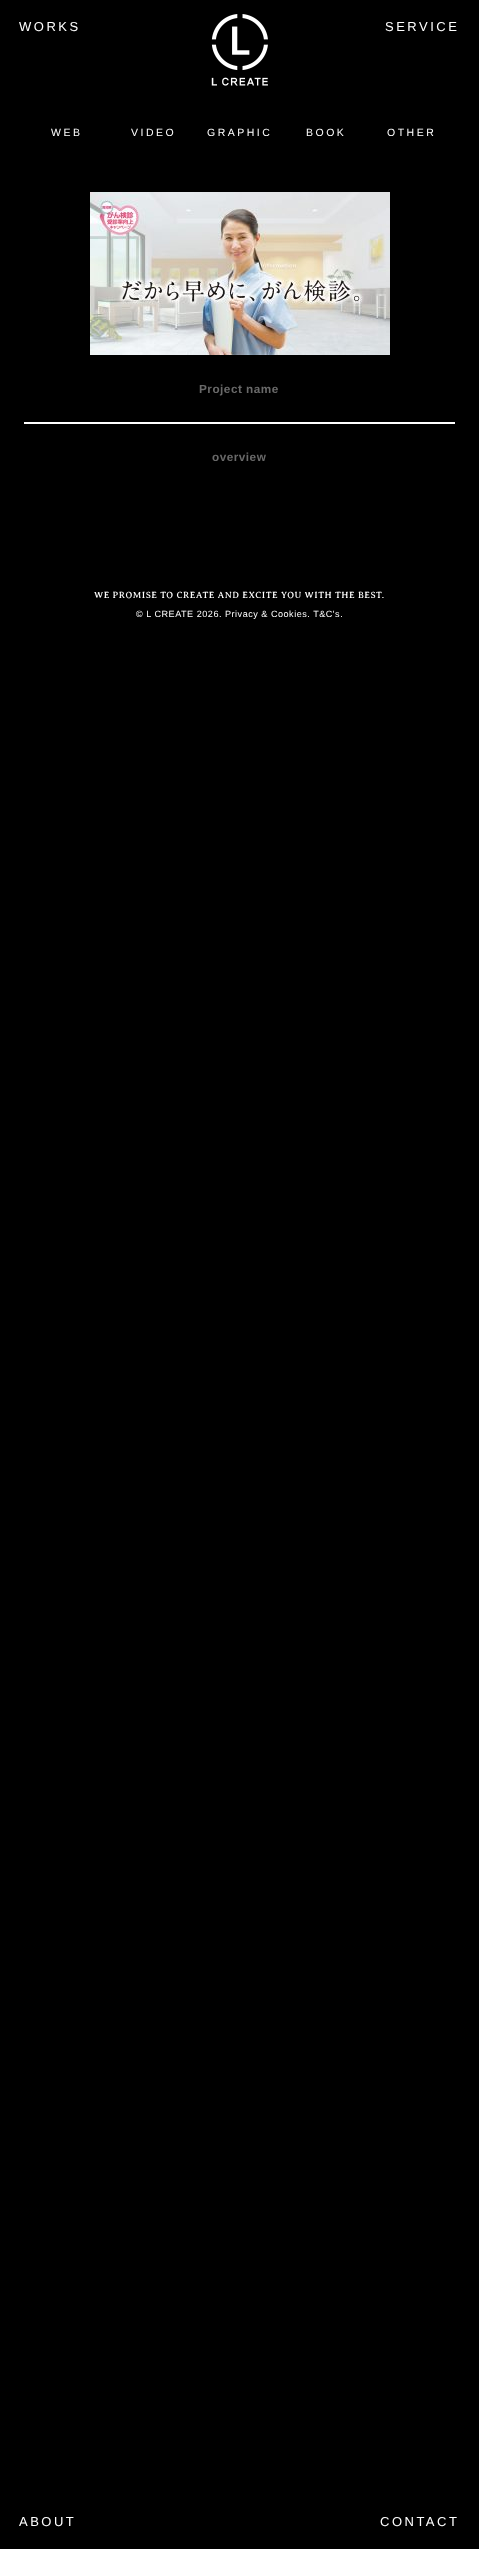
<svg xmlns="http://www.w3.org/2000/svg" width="479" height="2549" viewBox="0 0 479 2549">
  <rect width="100%" height="100%" fill="rgb(0,0,0)"/>
  <text x="19" y="31" font-family="Liberation Sans" font-size="13" letter-spacing="2.5" fill="rgb(255,255,255)">WORKS</text>
  <image x="211" y="14" width="57" height="72" href="pic1.png"/>
  <g font-family="Liberation Sans" font-size="13" letter-spacing="2.5" fill="rgb(255,255,255)">
    <text x="385" y="31">SERVICE</text>
    <text x="19" y="2526">ABOUT</text>
    <text x="380" y="2526">CONTACT</text>
  </g>
  <g font-family="Liberation Sans" font-size="10.5" letter-spacing="2.5" fill="rgb(255,255,255)">
    <text x="51" y="136">WEB</text>
    <text x="131" y="136">VIDEO</text>
    <text x="207" y="136">GRAPHIC</text>
    <text x="306" y="136">BOOK</text>
    <text x="387" y="136">OTHER</text>
  </g>
  <image x="90" y="192" width="300" height="163" href="pic2.png"/>
  <text x="199" y="393" font-family="Liberation Sans" font-size="11.75" font-weight="bold" letter-spacing="0.5" fill="rgb(105,105,105)">Project name</text>
  <rect x="24" y="422" width="431" height="2" fill="rgb(255,255,255)"/>
  <text x="212" y="461" font-family="Liberation Sans" font-size="11.75" font-weight="bold" letter-spacing="0.5" fill="rgb(105,105,105)">overview</text>
  <text x="94" y="598" font-family="Averia Serif Libre" font-size="9.1" letter-spacing="0.5" fill="rgb(255,255,255)">WE PROMISE TO CREATE AND EXCITE YOU WITH THE BEST.</text>
  <text x="136" y="617" font-family="Liberation Sans" font-size="9.1" letter-spacing="0.5" fill="rgb(255,255,255)">© L CREATE 2026. Privacy &amp; Cookies. T&amp;C's.</text>
</svg>
